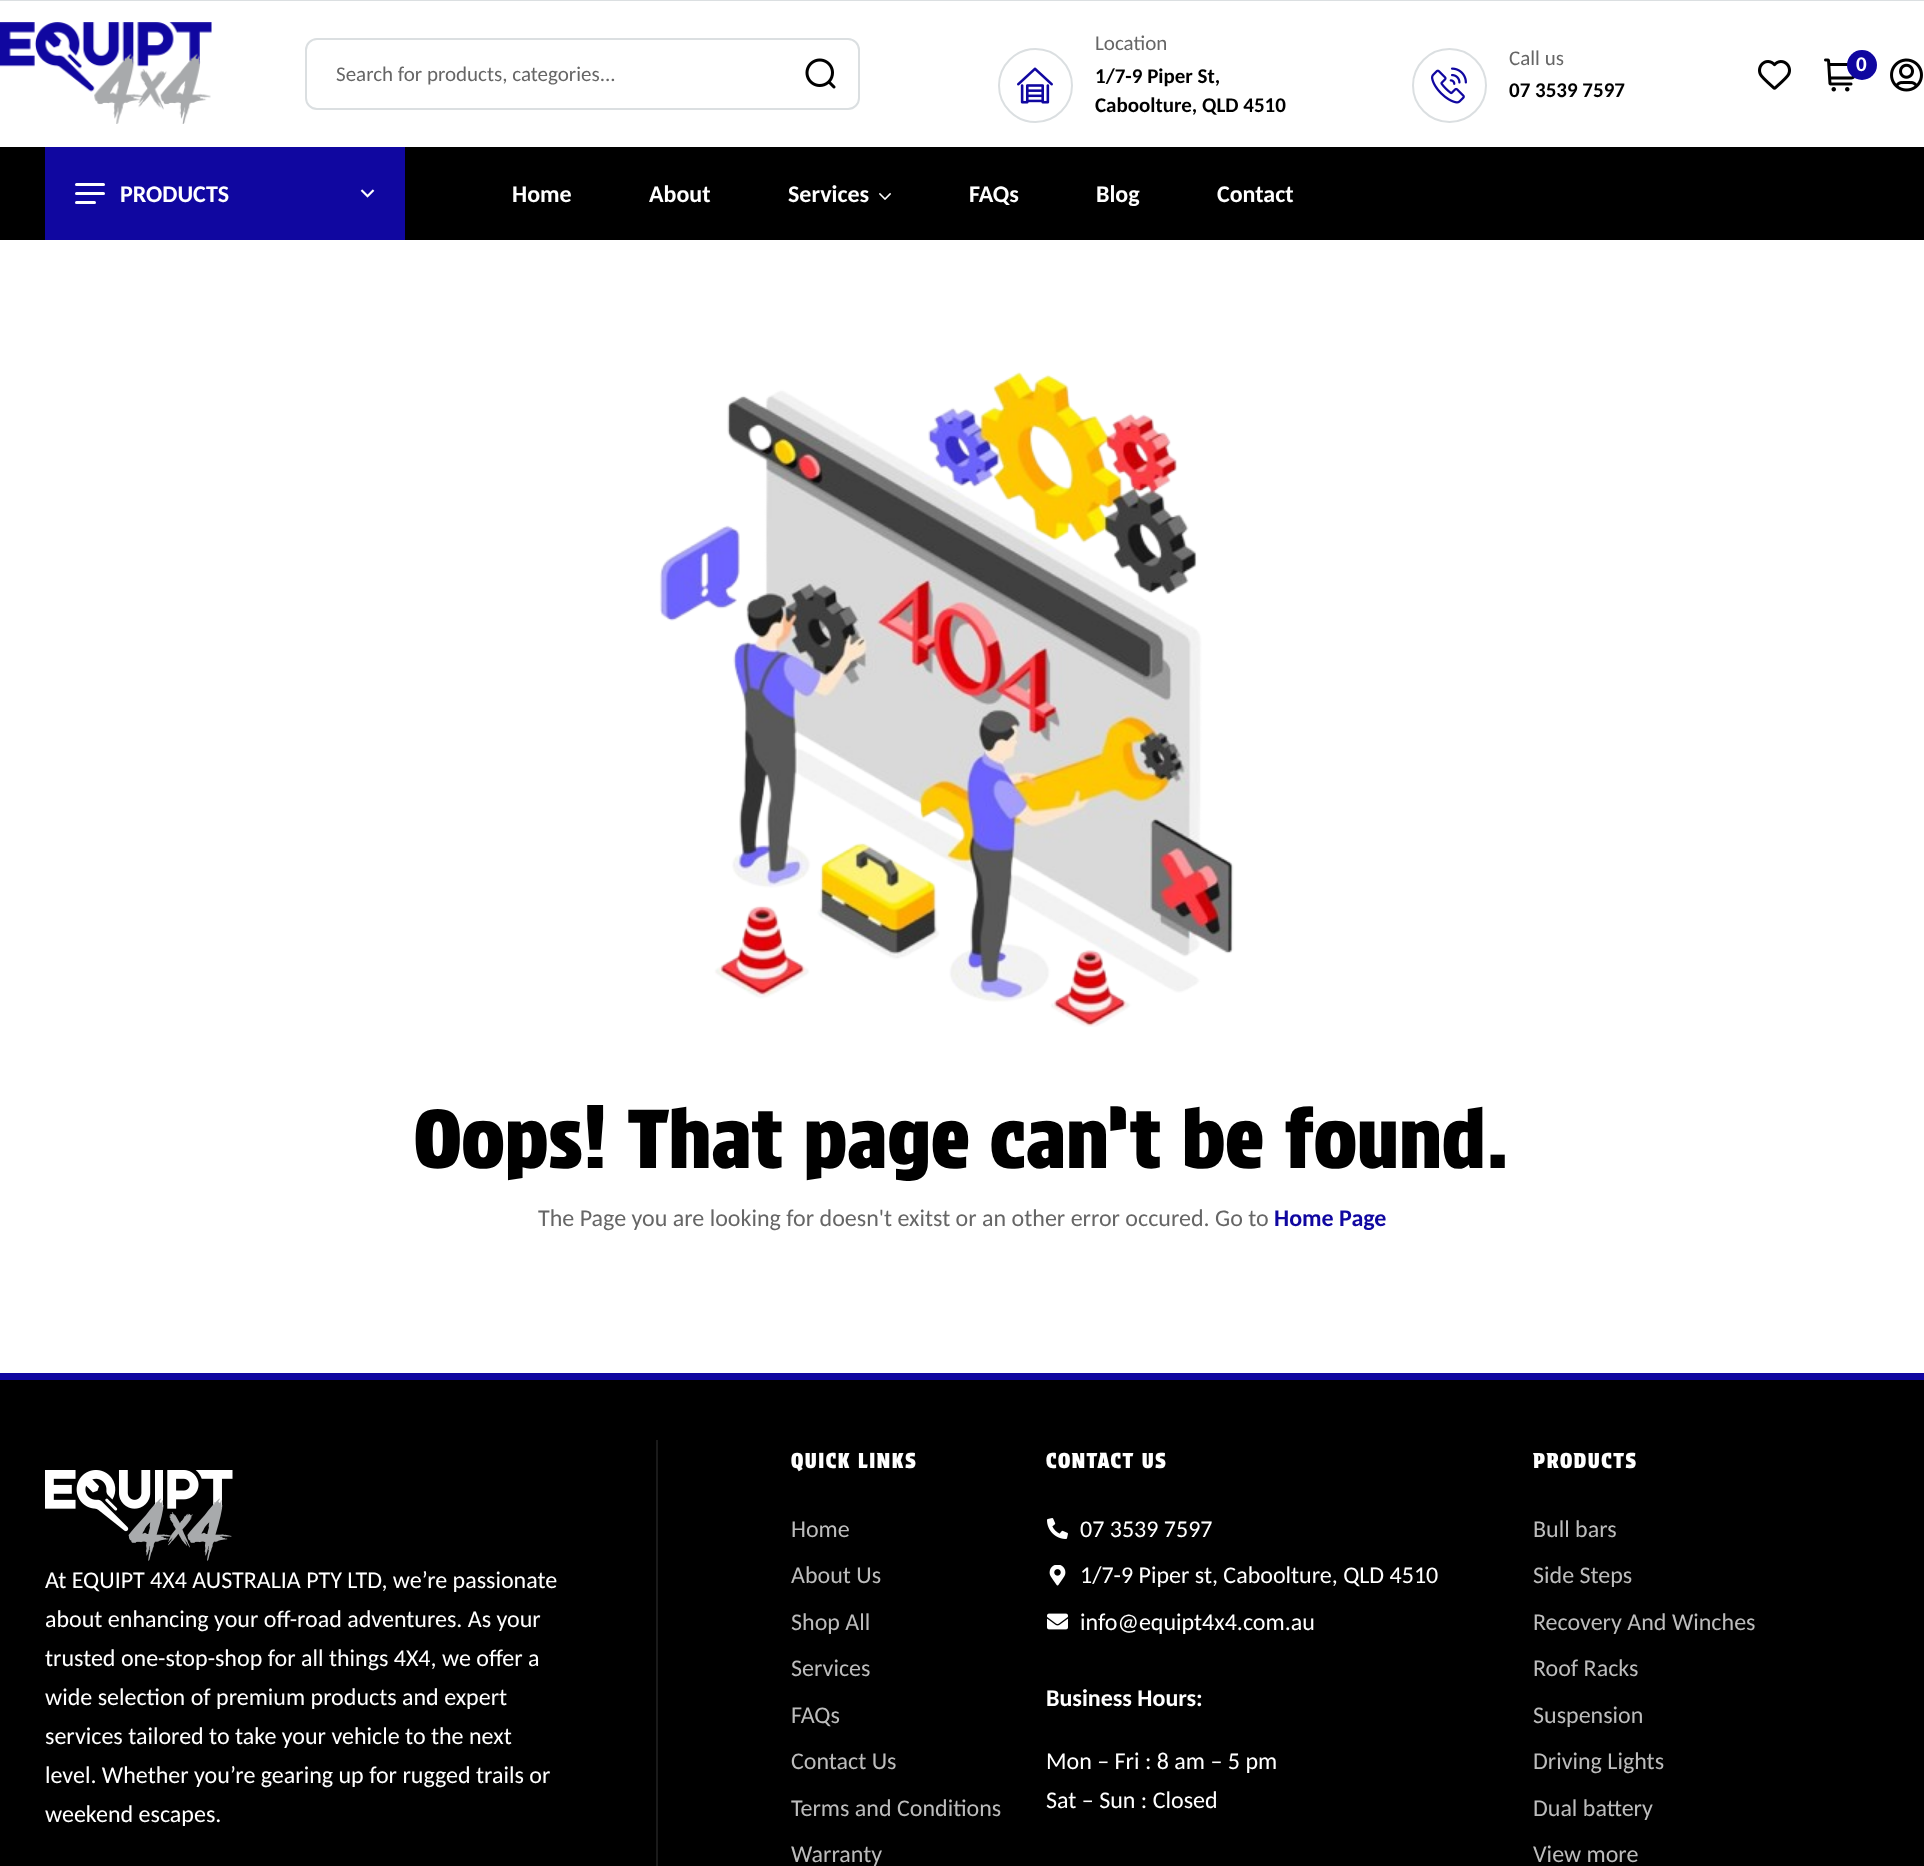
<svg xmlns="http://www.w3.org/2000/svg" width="1924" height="1866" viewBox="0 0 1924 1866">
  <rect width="100%" height="100%" fill="rgb(255,255,255)"/>
  <rect x="0" y="0" width="1924" height="1" fill="rgb(219,223,225)"/>
  <image x="0" y="22" width="212" height="102" href="pic1.png"/>
  <circle cx="1035.5" cy="85.5" r="36.5" fill="none" stroke="rgb(219,223,225)" stroke-width="2"/>
  <image x="1017" y="67" width="36" height="37" href="pic2.png"/>
  <text x="1095" y="50" font-family="Carlito" font-size="21" fill="rgb(102,102,102)">Location</text>
  <g font-family="Carlito" font-size="21" font-weight="bold" fill="rgb(0,0,0)">
    <text>
      <tspan x="1095" y="83">1/7-9 Piper St,</tspan>
      <tspan x="1095" y="112">Caboolture, QLD 4510</tspan>
    </text>
  </g>
  <circle cx="1449.5" cy="85.5" r="36.5" fill="none" stroke="rgb(219,223,225)" stroke-width="2"/>
  <image x="1431" y="67" width="36" height="37" href="pic3.png"/>
  <text x="1509" y="65" font-family="Carlito" font-size="21" fill="rgb(102,102,102)">Call us</text>
  <text x="1509" y="97" font-family="Carlito" font-size="21" font-weight="bold" fill="rgb(0,0,0)">07 3539 7597</text>
  <image x="1758" y="60" width="33" height="30" href="pic4.png"/>
  <image x="1824" y="58" width="31" height="34" href="pic5.png"/>
  <circle cx="1862" cy="65" r="15" fill="rgb(16,7,160)"/>
  <text x="1856" y="71" font-family="Carlito" font-size="21" font-weight="bold" fill="rgb(255,255,255)">0</text>
  <image x="1890" y="58" width="33" height="34" href="pic6.png"/>
  <rect x="306" y="39" width="553" height="70" rx="11" fill="none" stroke="rgb(219,223,225)" stroke-width="2"/>
  <text x="336" y="81" font-family="Carlito" font-size="21" fill="rgb(102,102,102)">Search for products, categories...</text>
  <image x="805" y="58" width="31" height="31" href="pic7.png"/>
  <rect x="0" y="147" width="1924" height="93" fill="rgb(0,0,0)"/>
  <rect x="45" y="147" width="360" height="93" fill="rgb(16,7,160)"/>
  <rect x="75" y="183" width="30" height="3" rx="1.5" fill="rgb(255,255,255)"/>
  <rect x="75" y="192" width="30" height="3" rx="1.5" fill="rgb(255,255,255)"/>
  <rect x="75" y="201" width="21" height="3" rx="1.5" fill="rgb(255,255,255)"/>
  <text x="120" y="202" font-family="Carlito" font-size="24" font-weight="bold" fill="rgb(255,255,255)">PRODUCTS</text>
  <image x="360" y="189" width="15" height="9" href="pic8.png"/>
  <g font-family="Carlito" font-size="24" font-weight="bold" fill="rgb(255,255,255)">
    <text x="512" y="202">Home</text>
    <text x="649" y="202">About</text>
    <text x="788" y="202">Services</text>
  </g>
  <image x="879" y="193" width="12" height="7" href="pic9.png"/>
  <g font-family="Carlito" font-size="24" font-weight="bold" fill="rgb(255,255,255)">
    <text x="969" y="202">FAQs</text>
    <text x="1096" y="202">Blog</text>
    <text x="1217" y="202">Contact</text>
  </g>
  <image x="659" y="371" width="575" height="656" href="pic10.png"/>
  <text x="414" y="1168" font-family="Protest Strike" font-size="81" fill="rgb(0,0,0)">Oops! That page can’t be found.</text>
  <text x="538" y="1226" font-family="Carlito" font-size="24" fill="rgb(102,102,102)">The Page you are looking for doesn't exitst or an other error occured. Go to</text>
  <text x="1274" y="1226" font-family="Carlito" font-size="24" font-weight="bold" fill="rgb(16,7,160)">Home Page</text>
  <rect x="0" y="1380" width="1924" height="486" fill="rgb(0,0,0)"/>
  <rect x="0" y="1373" width="1924" height="7" fill="rgb(16,7,160)"/>
  <rect x="656" y="1440" width="2" height="426" fill="rgb(26,26,26)"/>
  <image x="45" y="1470" width="188" height="91" href="pic11.png"/>
  <g font-family="Carlito" font-size="24" fill="rgb(255,255,255)">
    <text>
      <tspan x="45" y="1588">At EQUIPT 4X4 AUSTRALIA PTY LTD, we’re passionate</tspan>
      <tspan x="45" y="1627">about enhancing your off-road adventures. As your</tspan>
      <tspan x="45" y="1666">trusted one-stop-shop for all things 4X4, we offer a</tspan>
      <tspan x="45" y="1705">wide selection of premium products and expert</tspan>
      <tspan x="45" y="1744">services tailored to take your vehicle to the next</tspan>
      <tspan x="45" y="1783">level. Whether you’re gearing up for rugged trails or</tspan>
      <tspan x="45" y="1822">weekend escapes.</tspan>
    </text>
  </g>
  <text x="791" y="1468" font-family="Protest Strike" font-size="21" letter-spacing="1.5" fill="rgb(255,255,255)">QUICK LINKS</text>
  <g font-family="Carlito" font-size="24" fill="rgb(188,188,188)">
    <text>
      <tspan x="791" y="1537">Home</tspan>
      <tspan x="791" y="1583">About Us</tspan>
      <tspan x="791" y="1630">Shop All</tspan>
      <tspan x="791" y="1676">Services</tspan>
      <tspan x="791" y="1723">FAQs</tspan>
      <tspan x="791" y="1769">Contact Us</tspan>
      <tspan x="791" y="1816">Terms and Conditions</tspan>
      <tspan x="791" y="1862">Warranty</tspan>
    </text>
  </g>
  <text x="1046" y="1468" font-family="Protest Strike" font-size="21" letter-spacing="1.5" fill="rgb(255,255,255)">CONTACT US</text>
  <image x="1047" y="1518" width="21" height="21" href="pic12.png"/>
  <text x="1080" y="1537" font-family="Carlito" font-size="24" fill="rgb(255,255,255)">07 3539 7597</text>
  <image x="1049" y="1565" width="17" height="21" href="pic13.png"/>
  <text x="1080" y="1583" font-family="Carlito" font-size="24" fill="rgb(255,255,255)">1/7-9 Piper st, Caboolture, QLD 4510</text>
  <image x="1047" y="1613" width="21" height="17" href="pic14.png"/>
  <text x="1080" y="1630" font-family="Carlito" font-size="24" fill="rgb(255,255,255)">info@equipt4x4.com.au</text>
  <text x="1046" y="1706" font-family="Carlito" font-size="24" font-weight="bold" fill="rgb(255,255,255)">Business Hours:</text>
  <g font-family="Carlito" font-size="24" fill="rgb(255,255,255)">
    <text>
      <tspan x="1046" y="1769">Mon – Fri : 8 am – 5 pm</tspan>
      <tspan x="1046" y="1808">Sat – Sun : Closed</tspan>
    </text>
  </g>
  <text x="1533" y="1468" font-family="Protest Strike" font-size="21" letter-spacing="1.5" fill="rgb(255,255,255)">PRODUCTS</text>
  <g font-family="Carlito" font-size="24" fill="rgb(188,188,188)">
    <text>
      <tspan x="1533" y="1537">Bull bars</tspan>
      <tspan x="1533" y="1583">Side Steps</tspan>
      <tspan x="1533" y="1630">Recovery And Winches</tspan>
      <tspan x="1533" y="1676">Roof Racks</tspan>
      <tspan x="1533" y="1723">Suspension</tspan>
      <tspan x="1533" y="1769">Driving Lights</tspan>
      <tspan x="1533" y="1816">Dual battery</tspan>
      <tspan x="1533" y="1862">View more</tspan>
    </text>
  </g>
</svg>
